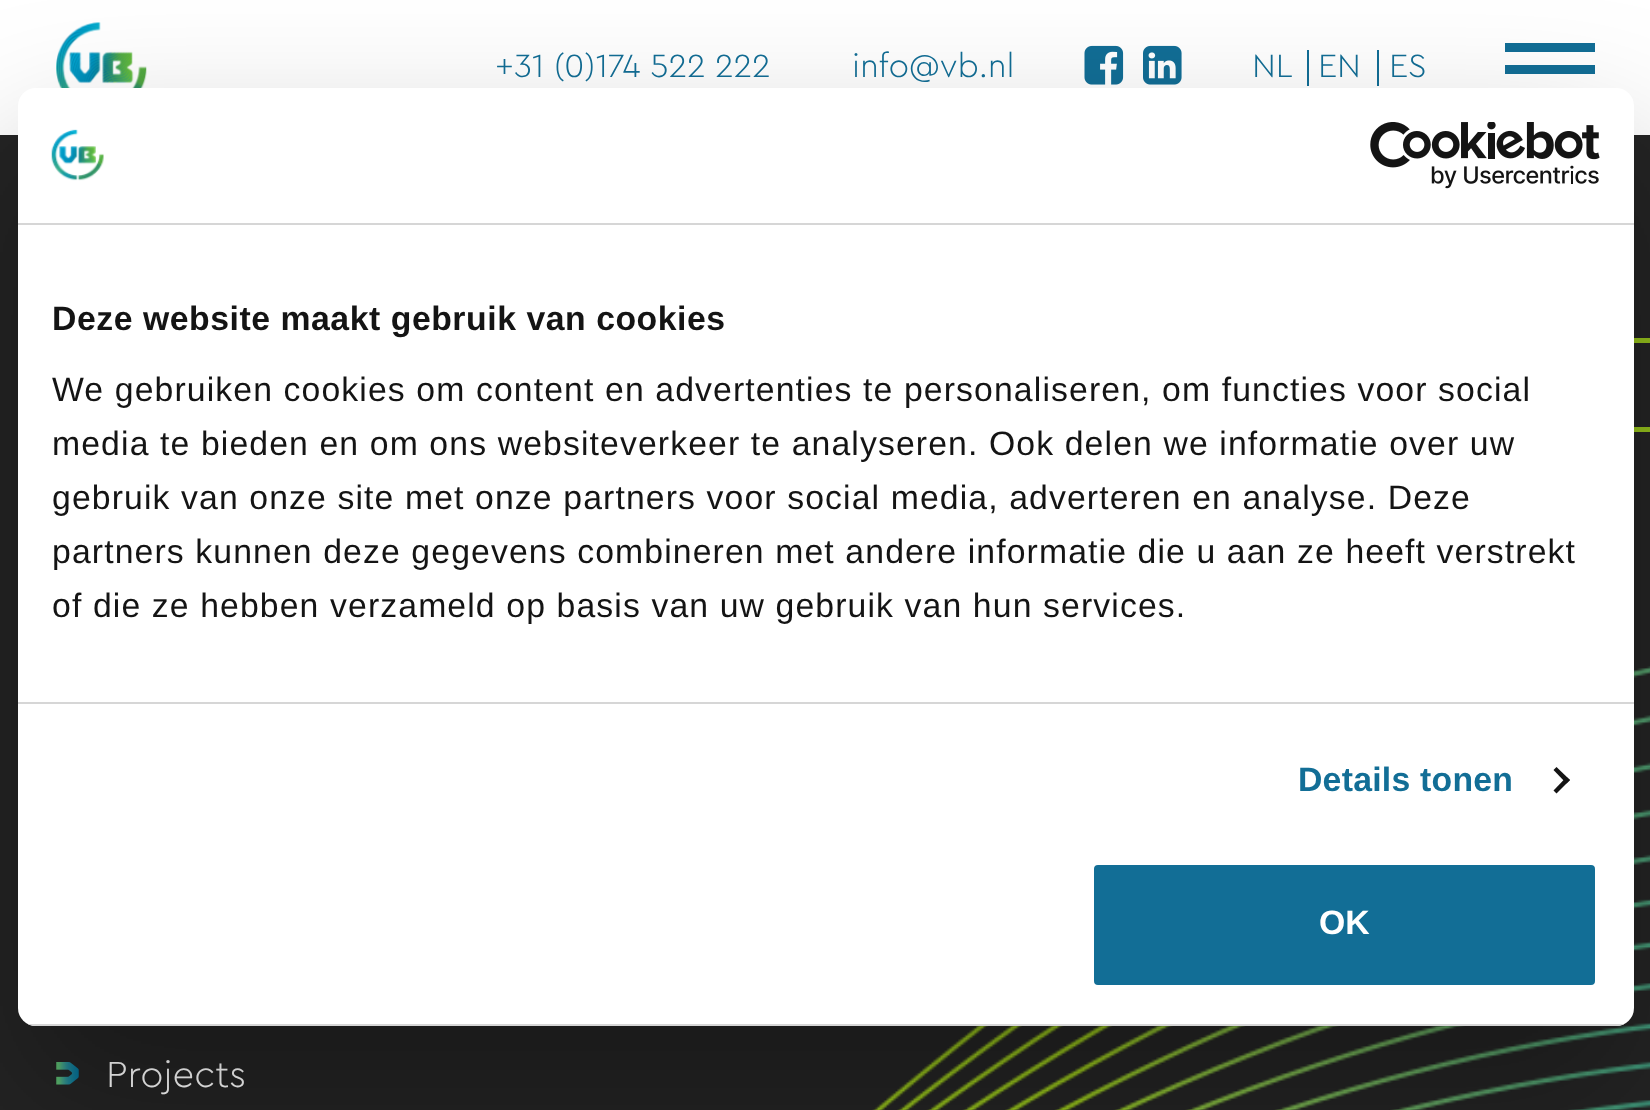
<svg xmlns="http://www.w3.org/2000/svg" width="1650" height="1110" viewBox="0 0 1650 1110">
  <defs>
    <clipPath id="clip1"><rect x="18" y="88" width="1616" height="938" rx="18"/></clipPath>
  </defs>
  <rect width="100%" height="100%" fill="rgb(36,36,36)"/>
  <rect x="0" y="0" width="1650" height="135" fill="rgb(255,255,255)"/>
  <image x="56" y="22" width="91" height="66" href="pic1.png"/>
  <text x="495" y="77" font-family="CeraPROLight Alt" font-size="33.75" fill="rgb(18,110,150)">+31 (0)174 522 222</text>
  <text x="852" y="77" font-family="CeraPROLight" font-size="33.75" fill="rgb(18,110,150)">info@vb.nl</text>
  <image x="1084" y="45" width="40" height="40" href="pic2.png"/>
  <image x="1143" y="45" width="39" height="40" href="pic3.png"/>
  <text x="1252" y="77" font-family="CeraPROLight" font-size="33.75" fill="rgb(18,110,150)">NL</text>
  <rect x="1307" y="50" width="2" height="36" fill="rgb(18,110,150)"/>
  <text x="1318" y="77" font-family="CeraPROLight" font-size="33.75" fill="rgb(18,110,150)">EN</text>
  <rect x="1377" y="50" width="2" height="36" fill="rgb(18,110,150)"/>
  <text x="1389" y="77" font-family="CeraPROLight" font-size="33.75" fill="rgb(18,110,150)">ES</text>
  <rect x="1505" y="43" width="90" height="9" fill="rgb(18,110,150)"/>
  <rect x="1505" y="65" width="90" height="9" fill="rgb(18,110,150)"/>
  <rect x="1276.5" y="340.5" width="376" height="89" fill="none" stroke="rgb(149,193,28)" stroke-width="5"/>
  <image x="56" y="1062" width="23" height="23" href="pic4.png"/>
  <text x="106" y="1087" font-family="CeraPROLight" font-size="38" fill="rgb(255,255,255)">Projects</text>
  <image x="872" y="666" width="778" height="444" href="pic5.png"/>
  <rect x="18" y="160" width="1616" height="938" rx="18" fill="rgba(0,0,0,0.3)" filter="blur(76.5px)"/>
  <rect x="18" y="88" width="1616" height="938" rx="18" fill="rgb(255,255,255)"/>
  <rect x="18" y="223" width="1616" height="2" fill="rgb(214,214,214)"/>
  <image x="51" y="129" width="53" height="52" href="pic6.png"/>
  <image x="1370" y="122" width="230" height="67" href="pic7.png"/>
  <rect x="18" y="702" width="1616" height="2" fill="rgb(214,214,214)"/>
  <text x="52" y="330" font-family="Liberation Sans" font-size="33.75" font-weight="bold" letter-spacing="0.55" fill="rgb(20,20,20)">Deze website maakt gebruik van cookies</text>
  <g font-family="Liberation Sans" font-size="33.75" letter-spacing="1.12" fill="rgb(20,20,20)">
    <text>
      <tspan x="52" y="401">We gebruiken cookies om content en advertenties te personaliseren, om functies voor social</tspan>
      <tspan x="52" y="455">media te bieden en om ons websiteverkeer te analyseren. Ook delen we informatie over uw</tspan>
      <tspan x="52" y="509">gebruik van onze site met onze partners voor social media, adverteren en analyse. Deze</tspan>
      <tspan x="52" y="563">partners kunnen deze gegevens combineren met andere informatie die u aan ze heeft verstrekt</tspan>
      <tspan x="52" y="617">of die ze hebben verzameld op basis van uw gebruik van hun services.</tspan>
    </text>
  </g>
  <text x="1298" y="791" font-family="Liberation Sans" font-size="33.75" font-weight="bold" letter-spacing="0.25" fill="rgb(18,110,150)">Details tonen</text>
  <path d="M1556.5 767L1570 780L1566.5 783.5L1553.5 770Z" fill="rgb(20,20,20)"/>
  <path d="M1566.5 777L1570 780L1556.5 793.5L1553.5 790.5Z" fill="rgb(20,20,20)"/>
  <g clip-path="url(#clip1)">
    <rect x="28" y="1024" width="1596" height="2" fill="rgb(214,214,214)"/>
  </g>
  <rect x="1091.5" y="862.5" width="506" height="125" rx="6.5" fill="rgb(18,110,150)" stroke="rgb(255,255,255)" stroke-width="5"/>
  <text x="1319" y="934" font-family="Liberation Sans" font-size="33.75" font-weight="bold" fill="rgb(255,255,255)">OK</text>
</svg>
